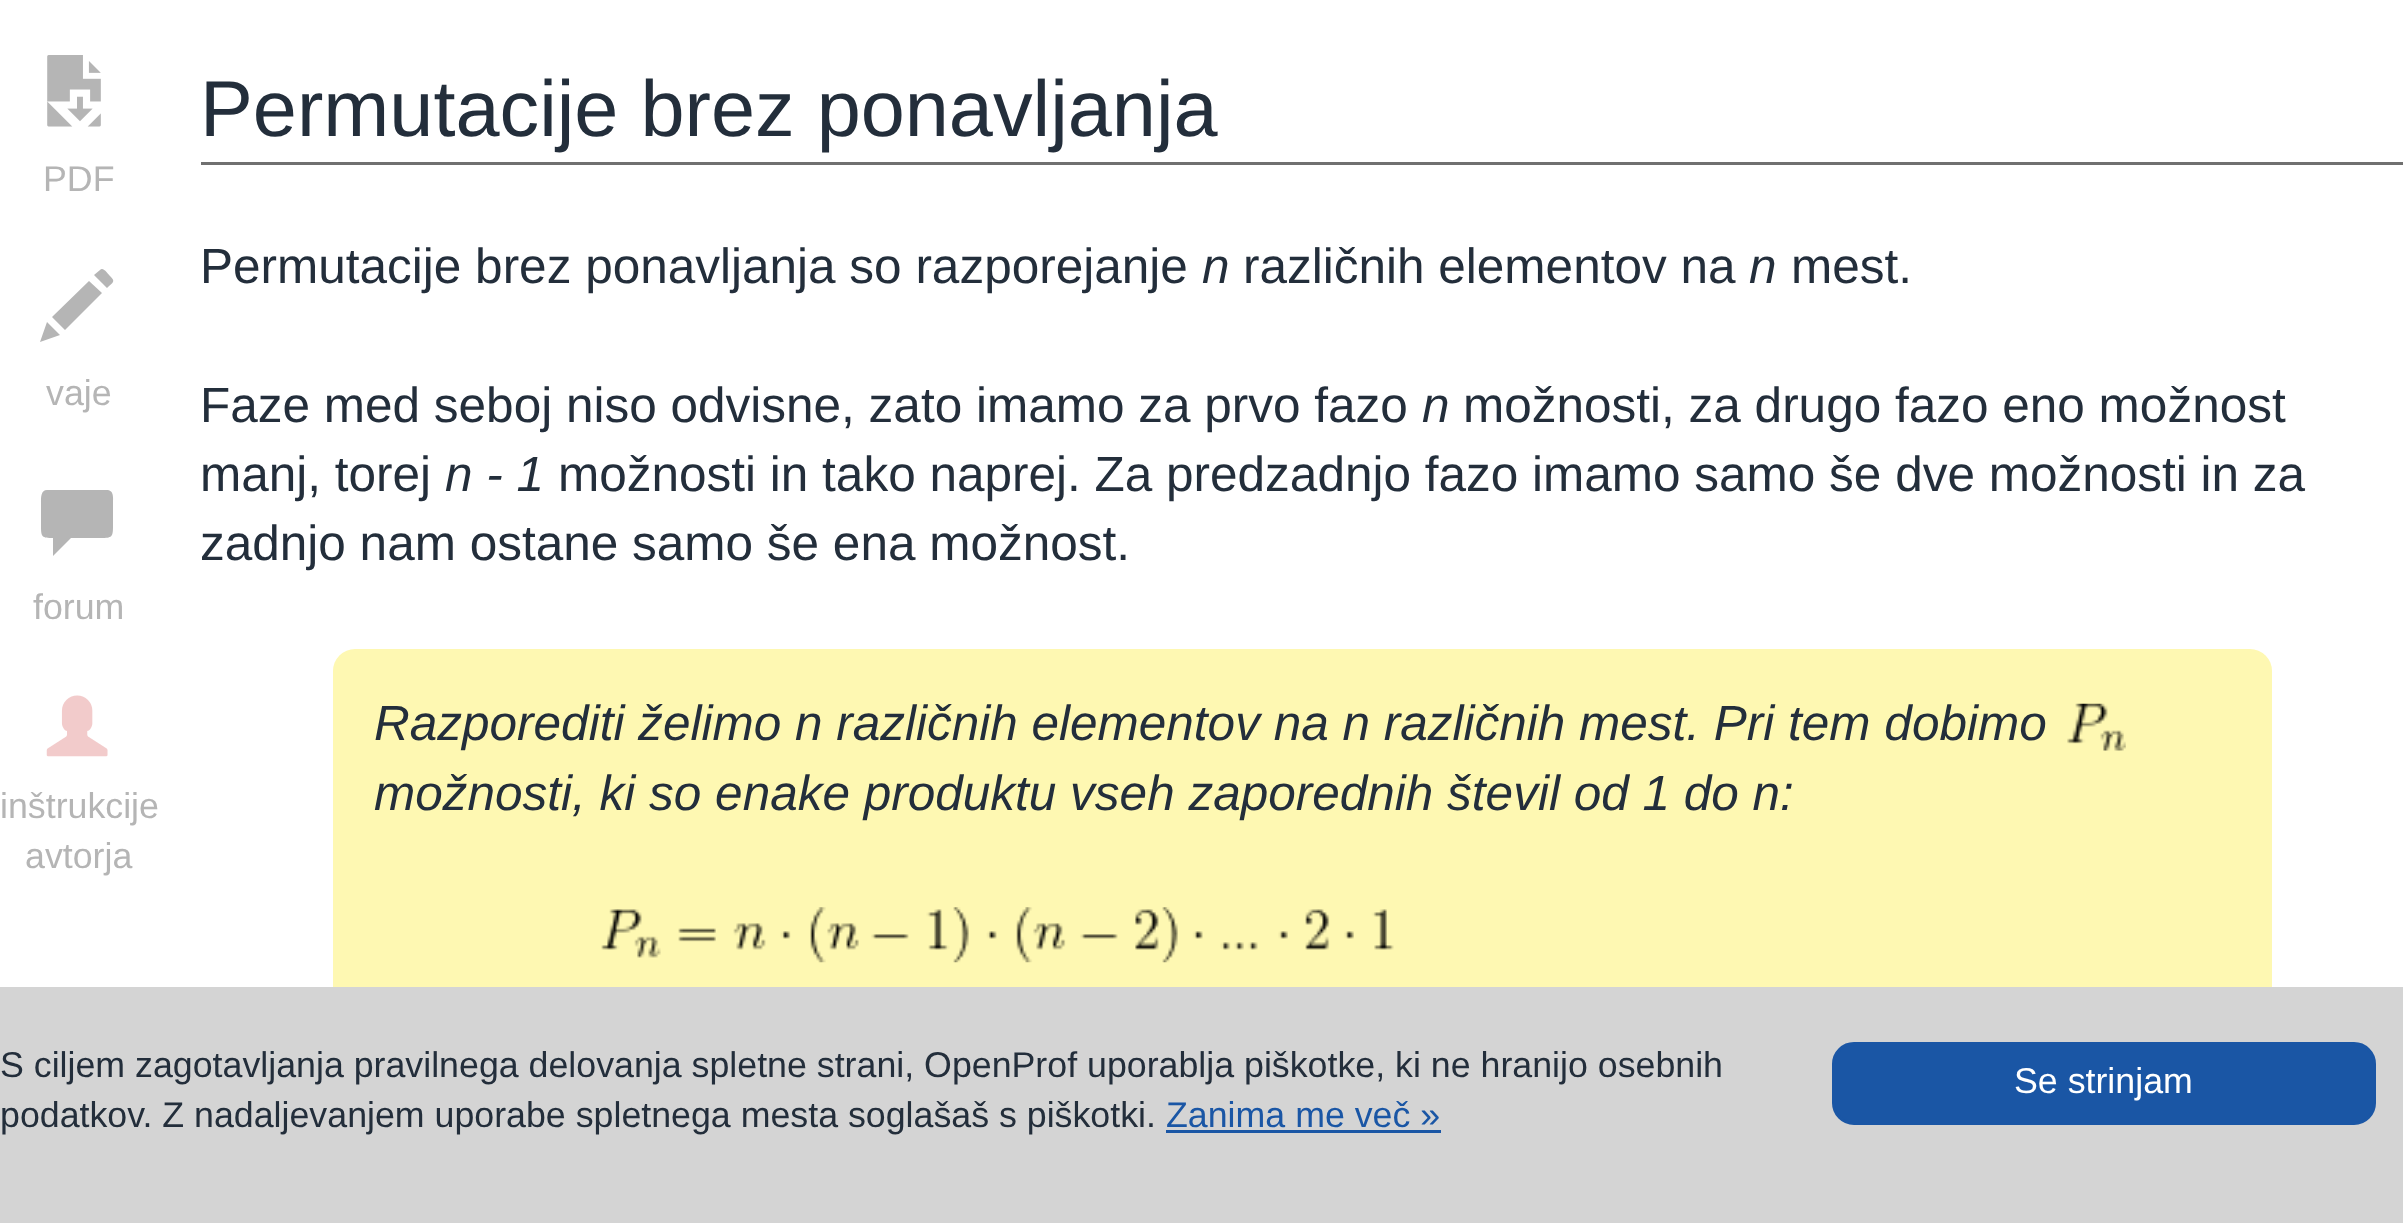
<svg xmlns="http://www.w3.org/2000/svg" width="2403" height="1223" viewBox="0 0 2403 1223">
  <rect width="100%" height="100%" fill="rgb(255,255,255)"/>
  <image x="47" y="55" width="54" height="72" href="pic1.png"/>
  <text x="43" y="191" font-family="Liberation Sans" font-size="35.75" fill="rgb(181,181,181)">PDF</text>
  <path d="M100 270C103 266 108 274 110 276C116 282 113 282 107 288L94 275ZM102 293L65 330L52 317L89 281ZM60 335L40 342L47 322Z" fill="rgb(181,181,181)"/>
  <text x="46" y="405" font-family="Liberation Sans" font-size="35.75" fill="rgb(181,181,181)">vaje</text>
  <path d="M47 490H108C114 491 113 498 113 502V526C113 537 112 538 101 538H71L53 556V538C42 538 41 537 41 526V502C41 497 41 490 47 490Z" fill="rgb(181,181,181)"/>
  <text x="33" y="619" font-family="Liberation Sans" font-size="35.75" fill="rgb(181,181,181)">forum</text>
  <image x="46" y="695" width="62" height="62" href="pic2.png"/>
  <g font-family="Liberation Sans" font-size="35.75" fill="rgb(181,181,181)">
    <text x="0" y="818">inštrukcije</text>
    <text x="25" y="868">avtorja</text>
  </g>
  <rect x="201" y="162" width="2202" height="3" fill="rgb(112,112,112)"/>
  <text x="200" y="136" font-family="Liberation Sans" font-size="79.25" fill="rgb(35,46,59)">Permutacije brez ponavljanja</text>
  <text x="200" y="283" font-family="Liberation Sans" font-size="49.5" fill="rgb(35,46,59)">Permutacije brez ponavljanja so razporejanje</text>
  <text x="1202" y="283" font-family="Liberation Sans" font-size="49.5" font-style="italic" fill="rgb(35,46,59)">n</text>
  <text x="1243" y="283" font-family="Liberation Sans" font-size="49.5" fill="rgb(35,46,59)">različnih elementov na</text>
  <text x="1749" y="283" font-family="Liberation Sans" font-size="49.5" font-style="italic" fill="rgb(35,46,59)">n</text>
  <g font-family="Liberation Sans" font-size="49.5" fill="rgb(35,46,59)">
    <text x="1791" y="283">mest.</text>
    <text x="200" y="422">Faze med seboj niso odvisne, zato imamo za prvo fazo</text>
  </g>
  <text x="1422" y="422" font-family="Liberation Sans" font-size="49.5" font-style="italic" fill="rgb(35,46,59)">n</text>
  <g font-family="Liberation Sans" font-size="49.5" fill="rgb(35,46,59)">
    <text x="1463" y="422">možnosti, za drugo fazo eno možnost</text>
    <text x="200" y="491">manj, torej</text>
  </g>
  <text x="445" y="491" font-family="Liberation Sans" font-size="49.5" font-style="italic" fill="rgb(35,46,59)">n - 1</text>
  <g font-family="Liberation Sans" font-size="49.5" fill="rgb(35,46,59)">
    <text x="558" y="491">možnosti in tako naprej. Za predzadnjo fazo imamo samo še dve možnosti in za</text>
    <text x="200" y="560">zadnjo nam ostane samo še ena možnost.</text>
  </g>
  <rect x="333" y="649" width="1939" height="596" rx="22" fill="rgb(254,248,178)"/>
  <text x="374" y="740" font-family="Liberation Sans" font-size="49.5" font-style="italic" fill="rgb(35,46,59)">Razporediti želimo n različnih elementov na n različnih mest. Pri tem dobimo</text>
  <image x="2067" y="703" width="59" height="48" href="pic3.png"/>
  <text x="374" y="810" font-family="Liberation Sans" font-size="49.5" font-style="italic" fill="rgb(35,46,59)">možnosti, ki so enake produktu vseh zaporednih števil od 1 do n:</text>
  <image x="601" y="907" width="793" height="56" href="pic4.png"/>
  <rect x="0" y="987" width="2403" height="236" fill="rgb(212,212,212)"/>
  <g font-family="Liberation Sans" font-size="35.75" fill="rgb(35,46,59)">
    <text>
      <tspan x="0" y="1077">S ciljem zagotavljanja pravilnega delovanja spletne strani, OpenProf uporablja piškotke, ki ne hranijo osebnih</tspan>
      <tspan x="0" y="1127">podatkov. Z nadaljevanjem uporabe spletnega mesta soglašaš s piškotki.</tspan>
    </text>
  </g>
  <text x="1166" y="1127" font-family="Liberation Sans" font-size="35.75" fill="rgb(26,86,165)">Zanima me več »</text>
  <rect x="1166" y="1130" width="275" height="3" fill="rgb(26,86,165)"/>
  <rect x="1833.5" y="1043.5" width="541" height="80" rx="20.5" fill="rgb(26,86,165)" stroke="rgb(26,86,165)" stroke-width="3"/>
  <text x="2014" y="1093" font-family="Liberation Sans" font-size="35.75" fill="rgb(255,255,255)">Se strinjam</text>
</svg>
